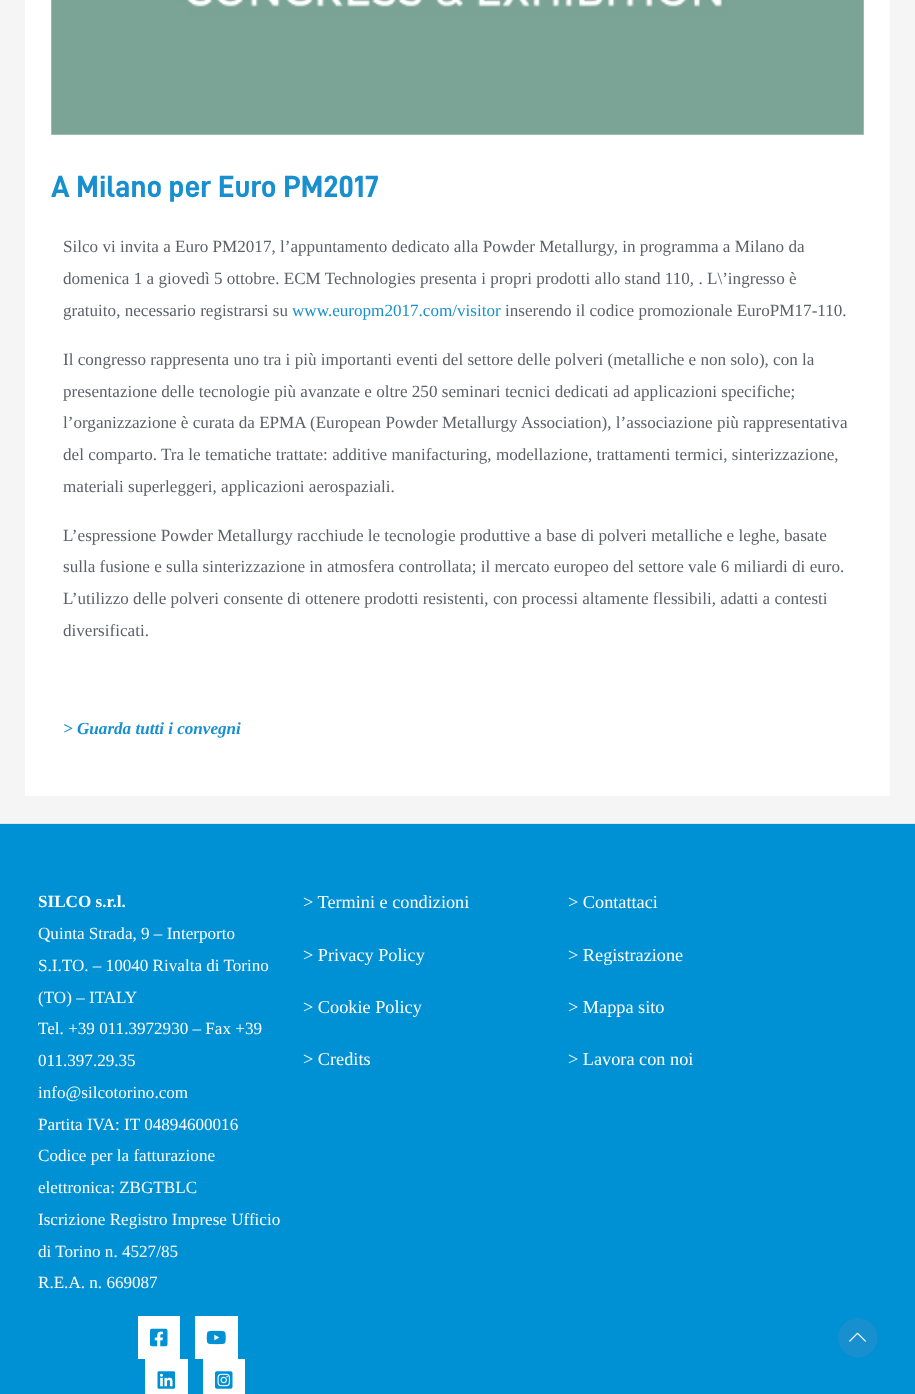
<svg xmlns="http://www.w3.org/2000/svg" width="915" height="1394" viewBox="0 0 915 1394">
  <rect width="100%" height="100%" fill="rgb(245,245,245)"/>
  <rect x="25" y="0" width="865" height="796" fill="rgb(255,255,255)"/>
  <image x="51" y="0" width="813" height="135" href="pic1.png"/>
  <text x="51" y="197" font-family="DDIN" font-size="30.75" font-weight="bold" fill="rgb(24,143,207)">A Milano per Euro PM2017</text>
  <g font-family="Liberation Serif" font-size="17.1" fill="rgb(93,97,103)">
    <text>
      <tspan x="63" y="252">Silco vi invita a Euro PM2017, l’appuntamento dedicato alla Powder Metallurgy, in programma a Milano da</tspan>
      <tspan x="63" y="284">domenica 1 a giovedì 5 ottobre. ECM Technologies presenta i propri prodotti allo stand 110, . L\’ingresso è</tspan>
      <tspan x="63" y="316">gratuito, necessario registrarsi su</tspan>
    </text>
  </g>
  <text x="292" y="316" font-family="Liberation Serif" font-size="17.1" fill="rgb(24,143,207)">www.europm2017.com/visitor</text>
  <g font-family="Liberation Serif" font-size="17.1" fill="rgb(93,97,103)">
    <text x="505" y="316">inserendo il codice promozionale EuroPM17-110.</text>
    <text>
      <tspan x="63" y="365">Il congresso rappresenta uno tra i più importanti eventi del settore delle polveri (metalliche e non solo), con la</tspan>
      <tspan x="63" y="397">presentazione delle tecnologie più avanzate e oltre 250 seminari tecnici dedicati ad applicazioni specifiche;</tspan>
      <tspan x="63" y="428">l’organizzazione è curata da EPMA (European Powder Metallurgy Association), l’associazione più rappresentativa</tspan>
      <tspan x="63" y="460">del comparto. Tra le tematiche trattate: additive manifacturing, modellazione, trattamenti termici, sinterizzazione,</tspan>
      <tspan x="63" y="492">materiali superleggeri, applicazioni aerospaziali.</tspan>
    </text>
    <text>
      <tspan x="63" y="541">L’espressione Powder Metallurgy racchiude le tecnologie produttive a base di polveri metalliche e leghe, basate</tspan>
      <tspan x="63" y="572">sulla fusione e sulla sinterizzazione in atmosfera controllata; il mercato europeo del settore vale 6 miliardi di euro.</tspan>
      <tspan x="63" y="604">L’utilizzo delle polveri consente di ottenere prodotti resistenti, con processi altamente flessibili, adatti a contesti</tspan>
      <tspan x="63" y="636">diversificati.</tspan>
    </text>
  </g>
  <text x="63" y="734" font-family="Liberation Serif" font-size="17.1" font-weight="bold" font-style="italic" fill="rgb(24,143,207)">&gt; Guarda tutti i convegni</text>
  <rect x="0" y="824" width="915" height="570" fill="rgb(0,144,212)"/>
  <rect x="0" y="823" width="915" height="1" fill="rgb(230,230,230)"/>
  <text x="38" y="907" font-family="Liberation Serif" font-size="17.1" font-weight="bold" fill="rgb(255,255,255)">SILCO s.r.l.</text>
  <g font-family="Liberation Serif" font-size="17.1" fill="rgb(255,255,255)">
    <text>
      <tspan x="38" y="939">Quinta Strada, 9 – Interporto</tspan>
      <tspan x="38" y="971">S.I.TO. – 10040 Rivalta di Torino</tspan>
      <tspan x="38" y="1003">(TO) – ITALY</tspan>
      <tspan x="38" y="1034">Tel. +39 011.3972930 – Fax +39</tspan>
      <tspan x="38" y="1066">011.397.29.35</tspan>
      <tspan x="38" y="1098">info@silcotorino.com</tspan>
      <tspan x="38" y="1130">Partita IVA: IT 04894600016</tspan>
      <tspan x="38" y="1161">Codice per la fatturazione</tspan>
      <tspan x="38" y="1193">elettronica: ZBGTBLC</tspan>
      <tspan x="38" y="1225">Iscrizione Registro Imprese Ufficio</tspan>
      <tspan x="38" y="1257">di Torino n. 4527/85</tspan>
      <tspan x="38" y="1288">R.E.A. n. 669087</tspan>
    </text>
  </g>
  <rect x="138" y="1316" width="42" height="43" fill="rgb(255,255,255)"/>
  <image x="150" y="1328" width="18" height="19" href="pic2.png"/>
  <rect x="195" y="1316" width="43" height="43" fill="rgb(255,255,255)"/>
  <image x="206" y="1330" width="20" height="15" href="pic3.png"/>
  <rect x="145" y="1359" width="43" height="35" fill="rgb(255,255,255)"/>
  <image x="157" y="1371" width="18" height="18" href="pic4.png"/>
  <rect x="203" y="1359" width="42" height="35" fill="rgb(255,255,255)"/>
  <image x="215" y="1371" width="18" height="18" href="pic5.png"/>
  <g font-family="Liberation Serif" font-size="18.25" fill="rgb(255,255,255)">
    <text x="303" y="908">&gt; Termini e condizioni</text>
    <text x="303" y="961">&gt; Privacy Policy</text>
    <text x="303" y="1013">&gt; Cookie Policy</text>
    <text x="303" y="1065">&gt; Credits</text>
    <text x="568" y="908">&gt; Contattaci</text>
    <text x="568" y="961">&gt; Registrazione</text>
    <text x="568" y="1013">&gt; Mappa sito</text>
    <text x="568" y="1065">&gt; Lavora con noi</text>
  </g>
  <path d="M858 1357.5C847 1357.5 838 1348.5 838 1338C838 1327 847 1318 858 1318C868.5 1318 877.5 1327 877.5 1338C877.5 1348.5 868.5 1357.5 858 1357.5Z" fill="rgb(24,143,207)"/>
  <image x="849" y="1332" width="17" height="10" href="pic6.png"/>
</svg>
